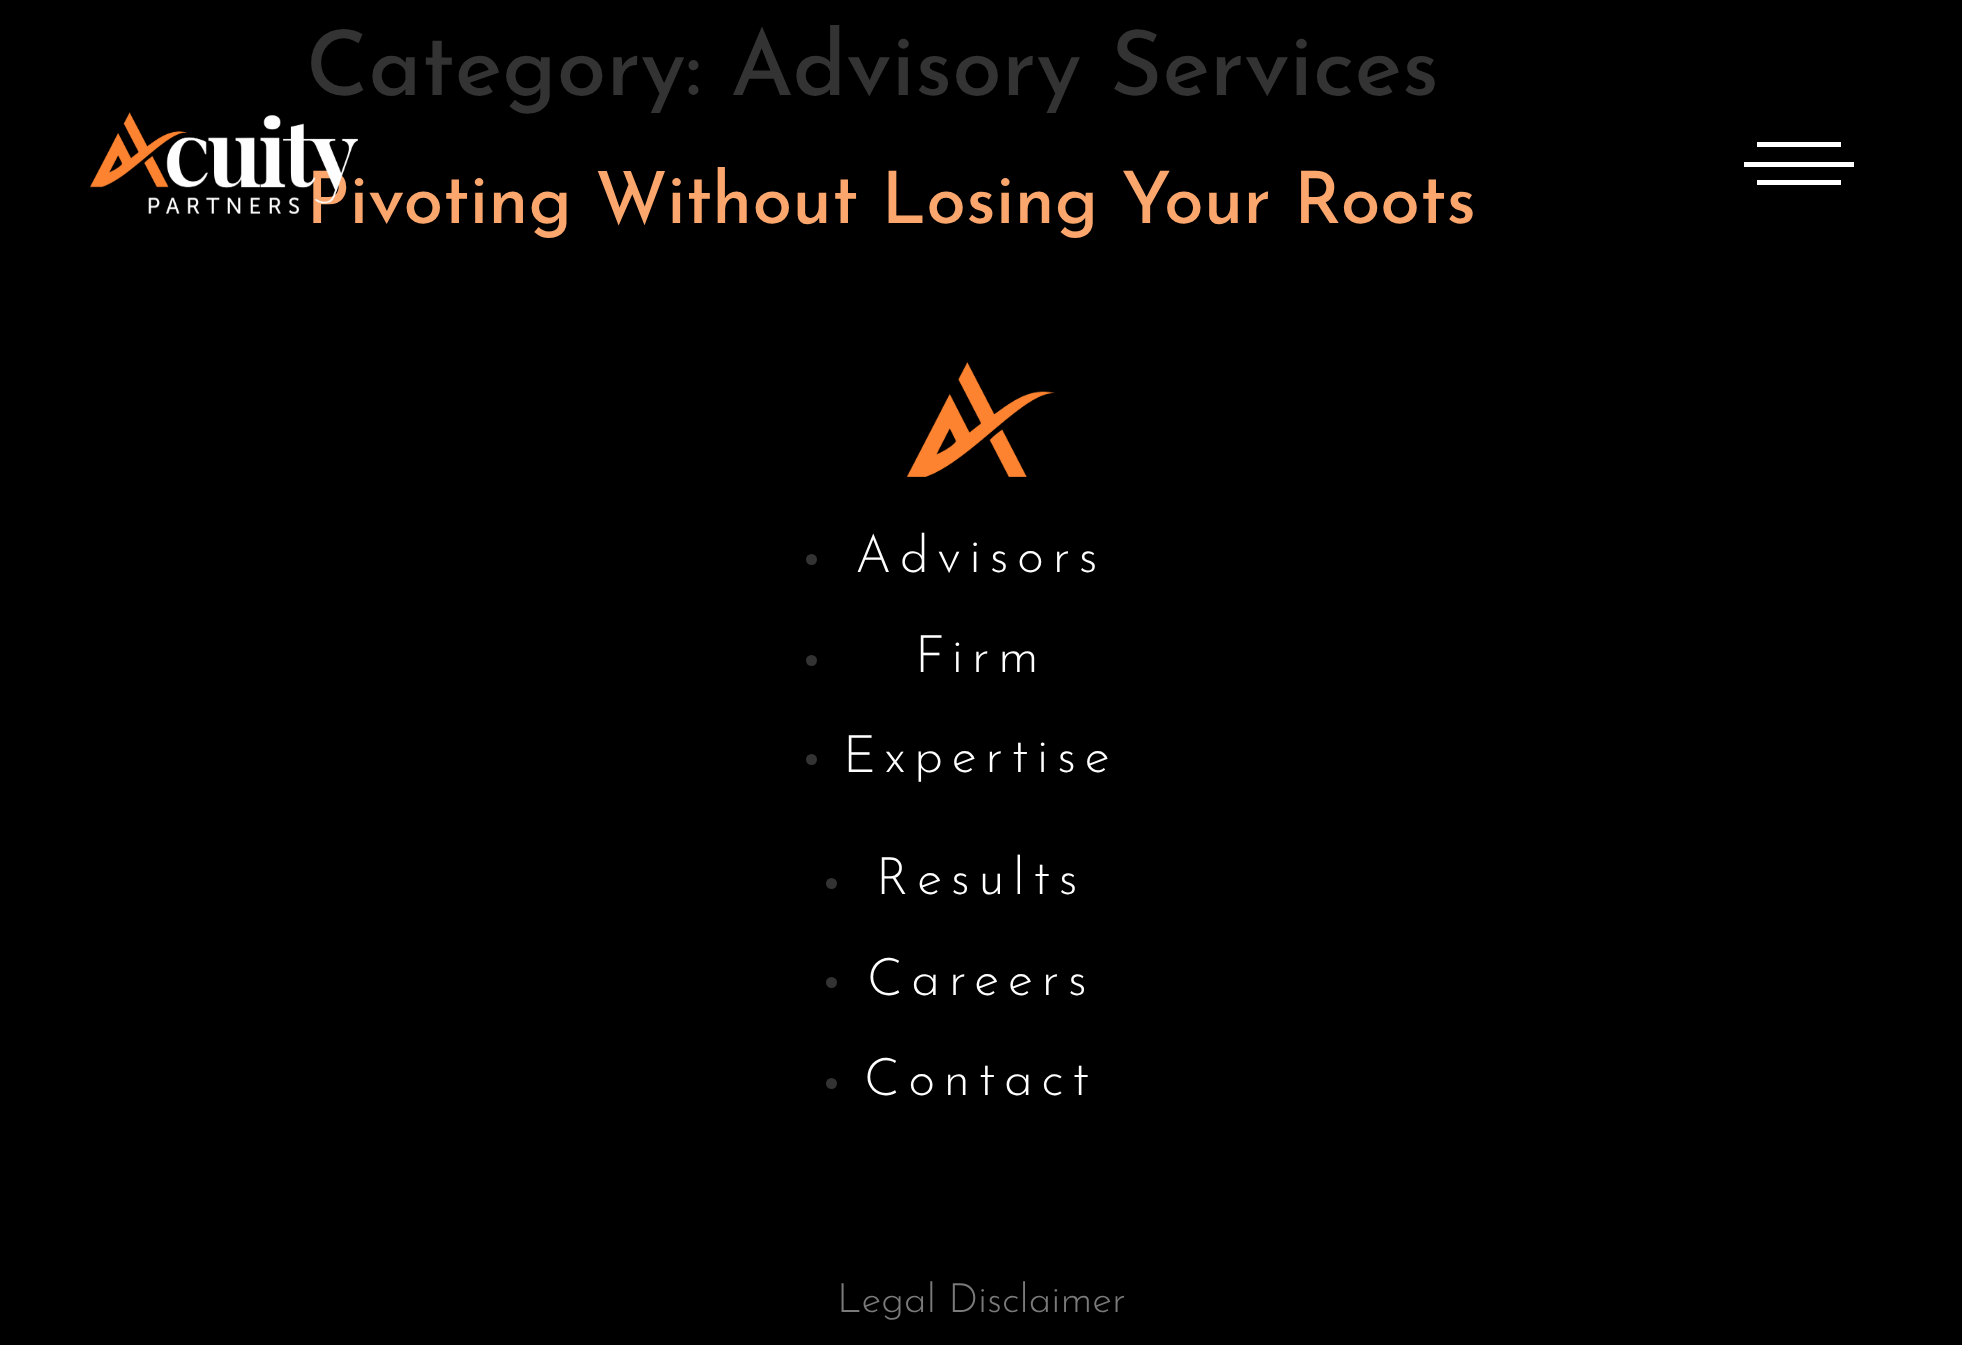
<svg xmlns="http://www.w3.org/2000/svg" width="1962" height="1345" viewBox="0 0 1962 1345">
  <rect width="100%" height="100%" fill="rgb(0,0,0)"/>
  <text x="306" y="95" font-family="Josefin Sans" font-size="90" font-weight="500" fill="rgb(51,51,51)">Category: Advisory Services</text>
  <text x="306" y="223" font-family="Josefin Sans" font-size="72" font-weight="500" fill="rgb(250,166,109)">Pivoting Without Losing Your Roots</text>
  <image x="90" y="112" width="268" height="102" href="pic1.png"/>
  <rect x="1757" y="142" width="84" height="5" fill="rgb(255,255,255)"/>
  <rect x="1744" y="162" width="110" height="5" fill="rgb(255,255,255)"/>
  <rect x="1757" y="180" width="84" height="5" fill="rgb(255,255,255)"/>
  <image x="906" y="362" width="149" height="115" href="pic2.png"/>
  <circle cx="811.5" cy="559.5" r="5.5" fill="rgb(51,51,51)"/>
  <text x="855" y="572" font-family="Josefin Sans" font-size="51.75" font-weight="300" letter-spacing="8.5" fill="rgb(255,255,255)">Advisors</text>
  <circle cx="811.5" cy="660.5" r="5.5" fill="rgb(51,51,51)"/>
  <text x="915" y="672" font-family="Josefin Sans" font-size="51.75" font-weight="300" letter-spacing="8.5" fill="rgb(255,255,255)">Firm</text>
  <circle cx="811.5" cy="759.5" r="5.5" fill="rgb(51,51,51)"/>
  <text x="843" y="772" font-family="Josefin Sans" font-size="51.75" font-weight="300" letter-spacing="8.5" fill="rgb(255,255,255)">Expertise</text>
  <circle cx="831.5" cy="883.5" r="5.5" fill="rgb(51,51,51)"/>
  <text x="876" y="894" font-family="Josefin Sans" font-size="51.75" font-weight="300" letter-spacing="8.5" fill="rgb(255,255,255)">Results</text>
  <circle cx="831.5" cy="982.5" r="5.5" fill="rgb(51,51,51)"/>
  <text x="867" y="995" font-family="Josefin Sans" font-size="51.75" font-weight="300" letter-spacing="8.5" fill="rgb(255,255,255)">Careers</text>
  <circle cx="831.5" cy="1083.5" r="5.5" fill="rgb(51,51,51)"/>
  <text x="864" y="1095" font-family="Josefin Sans" font-size="51.75" font-weight="300" letter-spacing="8.5" fill="rgb(255,255,255)">Contact</text>
  <text x="837" y="1312" font-family="Josefin Sans" font-size="40.5" font-weight="300" fill="rgb(122,122,122)">Legal Disclaimer</text>
</svg>
